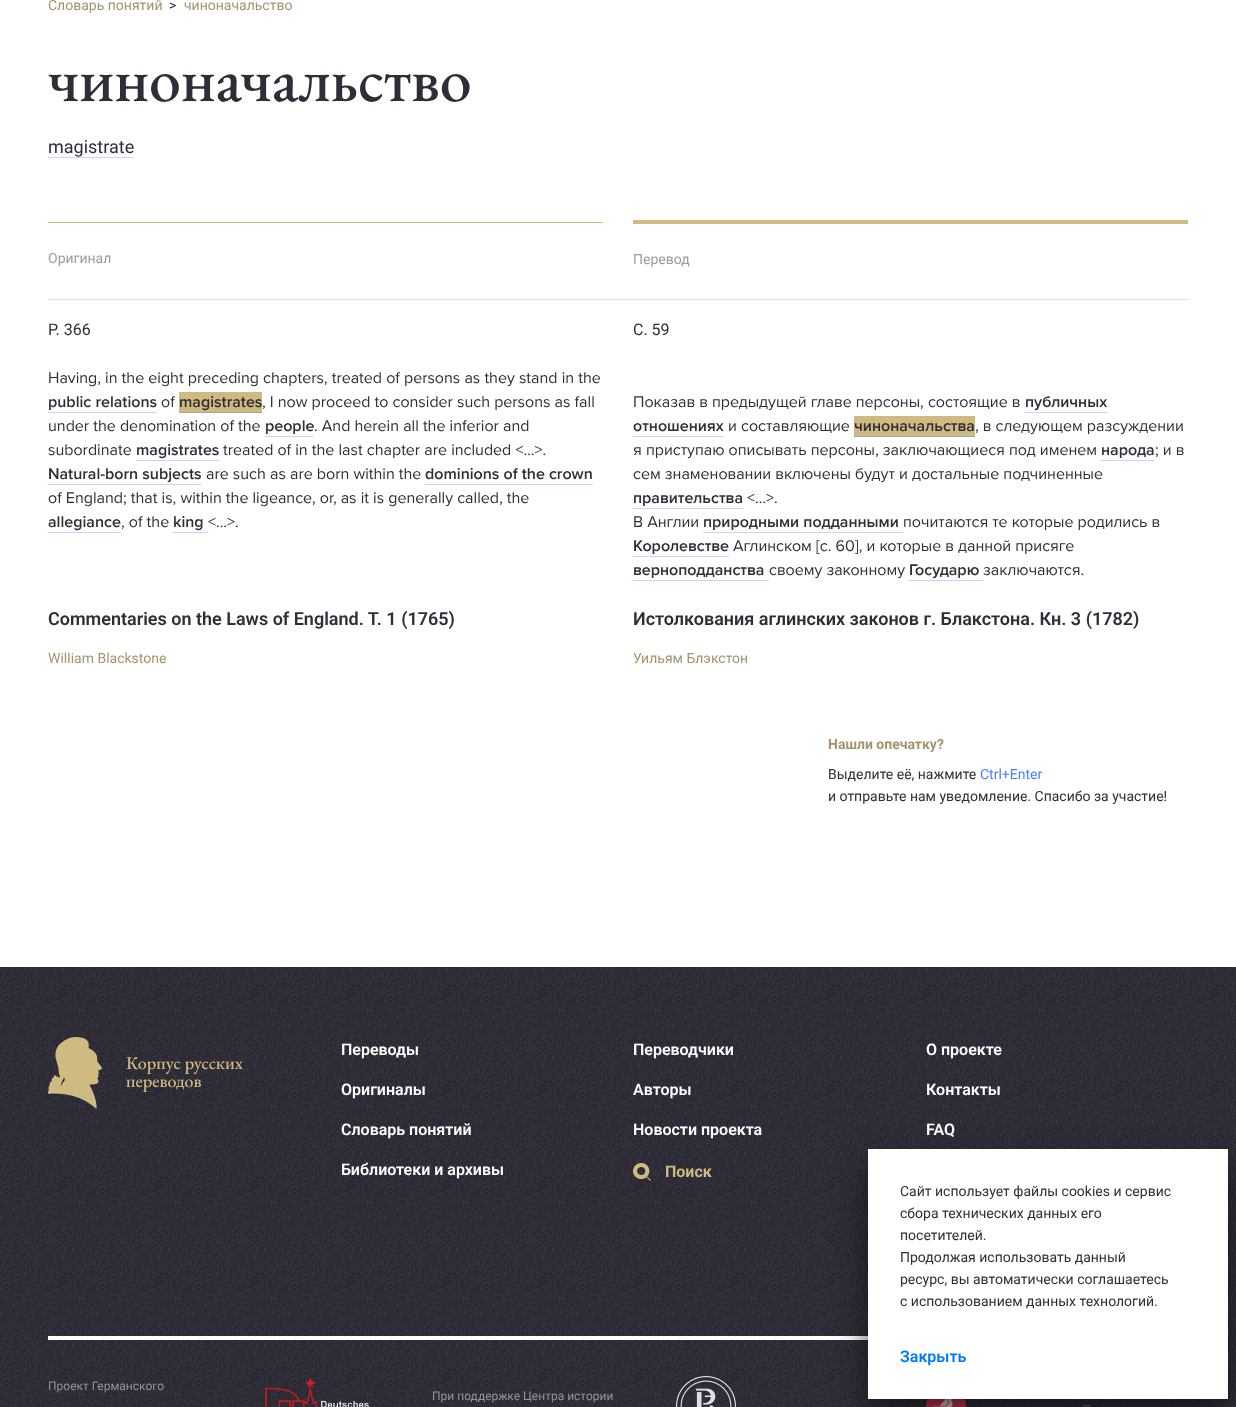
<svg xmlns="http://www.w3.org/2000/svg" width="1236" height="1407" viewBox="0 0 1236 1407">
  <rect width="100%" height="100%" fill="rgb(255,255,255)"/>
  <text x="48" y="10" font-family="Roboto" font-size="14" fill="rgb(162,148,110)">Словарь понятий</text>
  <text x="169" y="10" font-family="Roboto" font-size="14" fill="rgb(47,46,56)">&gt;</text>
  <text x="184" y="10" font-family="Roboto" font-size="14" fill="rgb(162,148,110)">чиноначальство</text>
  <text x="48" y="101" font-family="EB Garamond" font-size="64" font-weight="500" fill="rgb(47,46,56)">чиноначальство</text>
  <text x="48" y="153" font-family="Roboto" font-size="18" fill="rgb(47,46,56)">magistrate</text>
  <rect x="48" y="157" width="86" height="1" fill="rgb(201,216,254)"/>
  <rect x="48" y="222" width="555" height="1" fill="rgb(207,186,129)"/>
  <text x="48" y="263" font-family="Roboto" font-size="14" fill="rgb(155,155,159)">Оригинал</text>
  <rect x="633" y="220" width="555" height="4" fill="rgb(207,186,129)"/>
  <text x="633" y="264" font-family="Roboto" font-size="14" fill="rgb(155,155,159)">Перевод</text>
  <rect x="48" y="299" width="1140" height="1" fill="rgb(226,226,226)"/>
  <text x="48" y="335" font-family="Roboto" font-size="16" fill="rgb(47,46,56)">P. 366</text>
  <text x="48" y="383" font-family="Proxima Nova" font-size="16" fill="rgb(47,46,56)">Having, in the eight preceding chapters, treated of persons as they stand in the</text>
  <text x="48" y="407" font-family="Proxima Nova" font-size="16" font-weight="600" fill="rgb(47,46,56)">public relations</text>
  <rect x="48" y="412" width="109" height="1" fill="rgb(197,213,254)"/>
  <text x="161" y="407" font-family="Proxima Nova" font-size="16" fill="rgb(47,46,56)">of</text>
  <rect x="179" y="392" width="83" height="20" fill="rgb(207,186,129)"/>
  <text x="179" y="407" font-family="Proxima Nova" font-size="16" font-weight="600" fill="rgb(47,46,56)">magistrates</text>
  <rect x="179" y="412" width="83" height="1" fill="rgb(164,166,169)"/>
  <g font-family="Proxima Nova" font-size="16" fill="rgb(47,46,56)">
    <text x="262" y="407">, I now proceed to consider such persons as fall</text>
    <text x="48" y="431">under the denomination of the</text>
  </g>
  <text x="265" y="431" font-family="Proxima Nova" font-size="16" font-weight="600" fill="rgb(47,46,56)">people</text>
  <rect x="265" y="436" width="49" height="1" fill="rgb(197,213,254)"/>
  <g font-family="Proxima Nova" font-size="16" fill="rgb(47,46,56)">
    <text x="314" y="431">. And herein all the inferior and</text>
    <text x="48" y="455">subordinate</text>
  </g>
  <text x="136" y="455" font-family="Proxima Nova" font-size="16" font-weight="600" fill="rgb(47,46,56)">magistrates</text>
  <rect x="136" y="460" width="83" height="1" fill="rgb(197,213,254)"/>
  <text x="223" y="455" font-family="Proxima Nova" font-size="16" fill="rgb(47,46,56)">treated of in the last chapter are included &lt;…&gt;.</text>
  <text x="48" y="479" font-family="Proxima Nova" font-size="16" font-weight="600" fill="rgb(47,46,56)">Natural-born subjects</text>
  <rect x="48" y="484" width="154" height="1" fill="rgb(197,213,254)"/>
  <text x="206" y="479" font-family="Proxima Nova" font-size="16" fill="rgb(47,46,56)">are such as are born within the</text>
  <text x="425" y="479" font-family="Proxima Nova" font-size="16" font-weight="600" fill="rgb(47,46,56)">dominions of the crown</text>
  <rect x="425" y="484" width="168" height="1" fill="rgb(197,213,254)"/>
  <text x="48" y="503" font-family="Proxima Nova" font-size="16" fill="rgb(47,46,56)">of England; that is, within the ligeance, or, as it is generally called, the</text>
  <text x="48" y="527" font-family="Proxima Nova" font-size="16" font-weight="600" fill="rgb(47,46,56)">allegiance</text>
  <rect x="48" y="532" width="73" height="1" fill="rgb(197,213,254)"/>
  <text x="121" y="527" font-family="Proxima Nova" font-size="16" fill="rgb(47,46,56)">, of the</text>
  <text x="173" y="527" font-family="Proxima Nova" font-size="16" font-weight="600" fill="rgb(47,46,56)">king</text>
  <rect x="173" y="532" width="35" height="1" fill="rgb(197,213,254)"/>
  <text x="208" y="527" font-family="Proxima Nova" font-size="16" fill="rgb(47,46,56)">&lt;…&gt;.</text>
  <text x="48" y="625" font-family="Roboto" font-size="18" font-weight="600" fill="rgb(47,46,56)">Commentaries on the Laws of England. T. 1 (1765)</text>
  <text x="48" y="663" font-family="Roboto" font-size="14" fill="rgb(162,148,110)">William Blackstone</text>
  <text x="633" y="335" font-family="Roboto" font-size="16" fill="rgb(47,46,56)">С. 59</text>
  <text x="633" y="407" font-family="Proxima Nova" font-size="16" fill="rgb(47,46,56)">Показав в предыдущей главе персоны, состоящие в</text>
  <text x="1025" y="407" font-family="Proxima Nova" font-size="16" font-weight="600" fill="rgb(47,46,56)">публичных</text>
  <rect x="1025" y="412" width="82" height="1" fill="rgb(197,213,254)"/>
  <text x="633" y="431" font-family="Proxima Nova" font-size="16" font-weight="600" fill="rgb(47,46,56)">отношениях</text>
  <rect x="633" y="436" width="91" height="1" fill="rgb(197,213,254)"/>
  <text x="728" y="431" font-family="Proxima Nova" font-size="16" fill="rgb(47,46,56)">и составляющие</text>
  <rect x="854" y="416" width="121" height="20" fill="rgb(207,186,129)"/>
  <text x="854" y="431" font-family="Proxima Nova" font-size="16" font-weight="600" fill="rgb(47,46,56)">чиноначальства</text>
  <rect x="854" y="436" width="121" height="1" fill="rgb(164,166,169)"/>
  <g font-family="Proxima Nova" font-size="16" fill="rgb(47,46,56)">
    <text x="975" y="431">, в следующем разсуждении</text>
    <text x="633" y="455">я приступаю описывать персоны, заключающиеся под именем</text>
  </g>
  <text x="1101" y="455" font-family="Proxima Nova" font-size="16" font-weight="600" fill="rgb(47,46,56)">народа</text>
  <rect x="1101" y="460" width="54" height="1" fill="rgb(197,213,254)"/>
  <g font-family="Proxima Nova" font-size="16" fill="rgb(47,46,56)">
    <text x="1155" y="455">; и в</text>
    <text x="633" y="479">сем знаменовании включены будут и достальные подчиненные</text>
  </g>
  <text x="633" y="503" font-family="Proxima Nova" font-size="16" font-weight="600" fill="rgb(47,46,56)">правительства</text>
  <rect x="633" y="508" width="110" height="1" fill="rgb(197,213,254)"/>
  <g font-family="Proxima Nova" font-size="16" fill="rgb(47,46,56)">
    <text x="747" y="503">&lt;…&gt;.</text>
    <text x="633" y="527">В Англии</text>
  </g>
  <text x="703" y="527" font-family="Proxima Nova" font-size="16" font-weight="600" fill="rgb(47,46,56)">природными подданными</text>
  <rect x="703" y="532" width="200" height="1" fill="rgb(197,213,254)"/>
  <text x="903" y="527" font-family="Proxima Nova" font-size="16" fill="rgb(47,46,56)">почитаются те которые родились в</text>
  <text x="633" y="551" font-family="Proxima Nova" font-size="16" font-weight="600" fill="rgb(47,46,56)">Королевстве</text>
  <rect x="633" y="556" width="96" height="1" fill="rgb(197,213,254)"/>
  <text x="733" y="551" font-family="Proxima Nova" font-size="16" fill="rgb(47,46,56)">Аглинском [с. 60], и которые в данной присяге</text>
  <text x="633" y="575" font-family="Proxima Nova" font-size="16" font-weight="600" fill="rgb(47,46,56)">верноподданства</text>
  <rect x="633" y="580" width="136" height="1" fill="rgb(197,213,254)"/>
  <text x="769" y="575" font-family="Proxima Nova" font-size="16" fill="rgb(47,46,56)">своему законному</text>
  <text x="909" y="575" font-family="Proxima Nova" font-size="16" font-weight="600" fill="rgb(47,46,56)">Государю</text>
  <rect x="909" y="580" width="74" height="1" fill="rgb(197,213,254)"/>
  <text x="983" y="575" font-family="Proxima Nova" font-size="16" fill="rgb(47,46,56)">заключаются.</text>
  <text x="633" y="625" font-family="Roboto" font-size="18" font-weight="600" fill="rgb(47,46,56)">Истолкования аглинских законов г. Блакстона. Кн. 3 (1782)</text>
  <text x="633" y="663" font-family="Roboto" font-size="14" fill="rgb(162,148,110)">Уильям Блэкстон</text>
  <text x="828" y="749" font-family="Roboto" font-size="14" font-weight="bold" fill="rgb(162,148,110)">Нашли опечатку?</text>
  <text x="828" y="779" font-family="Roboto" font-size="14" fill="rgb(47,46,56)">Выделите её, нажмите</text>
  <text x="980" y="779" font-family="Roboto" font-size="14" fill="rgb(74,125,253)">Ctrl+Enter</text>
  <text x="828" y="801" font-family="Roboto" font-size="14" fill="rgb(47,46,56)">и отправьте нам уведомление. Спасибо за участие!</text>
  <image x="0" y="967" width="1236" height="440" href="pic1.png"/>
  <image x="48" y="1037" width="54" height="72" href="pic2.png"/>
  <g font-family="EB Garamond" font-size="18" font-weight="500" fill="rgb(207,186,129)">
    <text>
      <tspan x="126" y="1069">Корпус русских</tspan>
      <tspan x="126" y="1087">переводов</tspan>
    </text>
  </g>
  <g font-family="Roboto" font-size="16" font-weight="600" fill="rgb(255,255,255)">
    <text x="341" y="1055">Переводы</text>
    <text x="341" y="1095">Оригиналы</text>
    <text x="341" y="1135">Словарь понятий</text>
    <text x="341" y="1175">Библиотеки и архивы</text>
    <text x="633" y="1055">Переводчики</text>
    <text x="633" y="1095">Авторы</text>
    <text x="633" y="1135">Новости проекта</text>
  </g>
  <image x="633" y="1163" width="18" height="18" href="pic3.png"/>
  <text x="665" y="1177" font-family="Roboto" font-size="16" font-weight="bold" fill="rgb(207,186,129)">Поиск</text>
  <g font-family="Roboto" font-size="16" font-weight="600" fill="rgb(255,255,255)">
    <text x="926" y="1055">О проекте</text>
    <text x="926" y="1095">Контакты</text>
    <text x="926" y="1135">FAQ</text>
  </g>
  <rect x="48" y="1336" width="820" height="4" fill="rgb(255,255,255)"/>
  <text x="48" y="1390" font-family="Roboto" font-size="12" fill="rgb(146,146,151)">Проект Германского</text>
  <image x="265" y="1378" width="104" height="29" href="pic4.png"/>
  <text x="432" y="1400" font-family="Roboto" font-size="12" fill="rgb(146,146,151)">При поддержке Центра истории</text>
  <image x="676" y="1376" width="60" height="31" href="pic5.png"/>
  <image x="926" y="1399" width="40" height="8" href="pic6.png"/>
  <text x="1082" y="1410" font-family="Roboto" font-size="12" fill="rgb(146,146,151)">—</text>
  <rect x="868" y="1165" width="360" height="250" fill="rgba(13,13,15,0.72)" filter="blur(16px)"/>
  <rect x="868" y="1149" width="360" height="250" fill="rgb(255,255,255)"/>
  <g font-family="Roboto" font-size="14" fill="rgb(47,46,56)">
    <text>
      <tspan x="900" y="1196">Сайт использует файлы cookies и сервис</tspan>
      <tspan x="900" y="1218">сбора технических данных его</tspan>
      <tspan x="900" y="1240">посетителей.</tspan>
      <tspan x="900" y="1262">Продолжая использовать данный</tspan>
      <tspan x="900" y="1284">ресурс, вы автоматически соглашаетесь</tspan>
      <tspan x="900" y="1306">с использованием данных технологий.</tspan>
    </text>
  </g>
  <text x="900" y="1362" font-family="Roboto" font-size="16" font-weight="600" fill="rgb(0,123,255)">Закрыть</text>
</svg>
